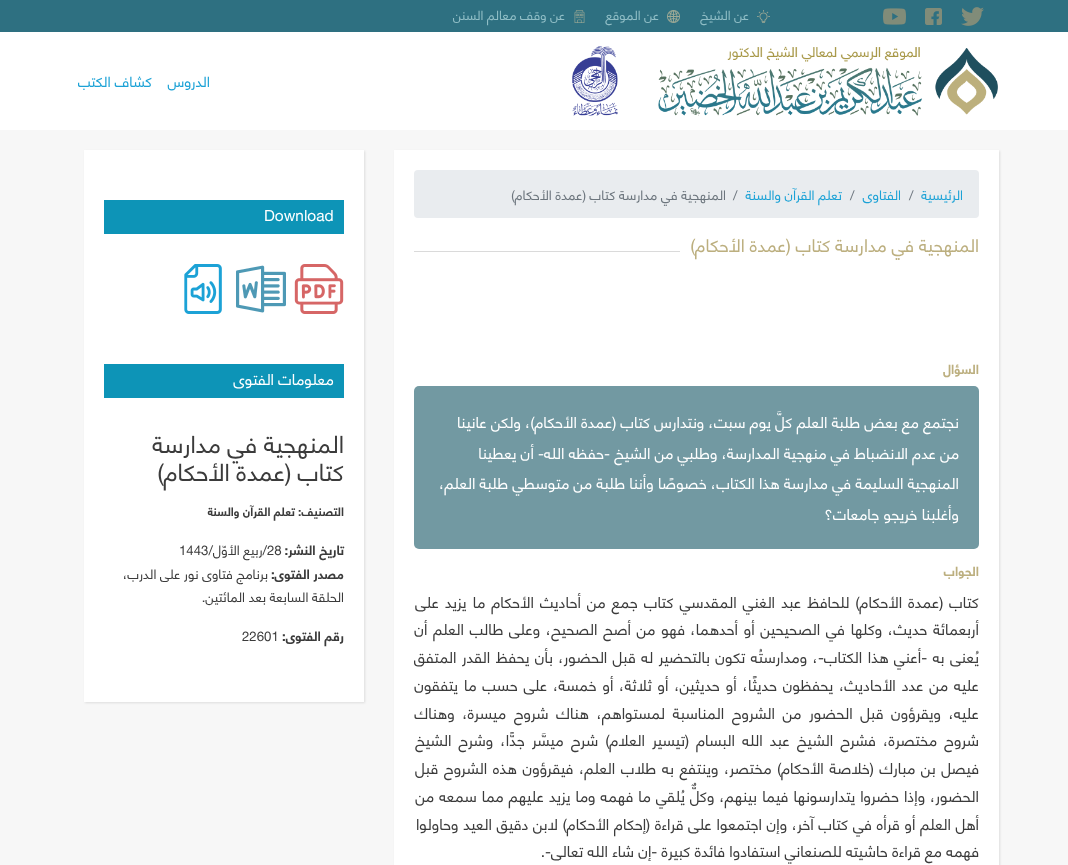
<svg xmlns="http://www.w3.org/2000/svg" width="1068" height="865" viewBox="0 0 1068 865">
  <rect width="100%" height="100%" fill="rgb(247,247,247)"/>
  <rect x="0" y="32" width="1068" height="98" fill="rgb(255,255,255)"/>
  <rect x="0" y="0" width="1068" height="32" fill="rgb(46,112,129)"/>
  <image x="961" y="7" width="23" height="19" href="pic1.png"/>
  <image x="925" y="8" width="17" height="17" href="pic2.png"/>
  <image x="883" y="8" width="23" height="17" href="pic3.png"/>
  <image x="757" y="10" width="13" height="13" href="pic4.png"/>
  <text x="749" y="20" font-family="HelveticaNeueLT" font-size="13" direction="rtl" fill="rgb(144,190,198)">عن الشيخ</text>
  <image x="667" y="10" width="13" height="13" href="pic5.png"/>
  <text x="659" y="20" font-family="HelveticaNeueLT" font-size="13" direction="rtl" fill="rgb(144,190,198)">عن الموقع</text>
  <image x="574" y="10" width="11" height="13" href="pic6.png"/>
  <text x="565" y="20" font-family="HelveticaNeueLT" font-size="13" direction="rtl" fill="rgb(144,190,198)">عن وقف معالم السنن</text>
  <image x="658" y="46" width="340" height="70" href="pic7.png"/>
  <image x="572" y="46" width="46" height="70" href="pic8.png"/>
  <g font-family="HelveticaNeueLT" font-size="14.5" direction="rtl" fill="rgb(28,162,214)">
    <text x="210" y="87">الدروس</text>
    <text x="152" y="87">كشاف الكتب</text>
  </g>
  <rect x="395" y="151" width="605" height="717" fill="rgba(0,0,0,0.1)" filter="blur(1px)"/>
  <rect x="394" y="150" width="605" height="715" fill="rgb(255,255,255)"/>
  <rect x="414" y="170" width="565" height="48" rx="4" fill="rgb(233,236,239)"/>
  <text x="963" y="200" font-family="HelveticaNeueLT" font-size="13.4" direction="rtl" fill="rgb(28,162,214)">الرئيسية</text>
  <text x="909" y="200" font-family="HelveticaNeueLT" font-size="13.4" fill="rgb(108,117,125)">/</text>
  <text x="901" y="200" font-family="HelveticaNeueLT" font-size="13.4" direction="rtl" fill="rgb(28,162,214)">الفتاوى</text>
  <text x="850" y="200" font-family="HelveticaNeueLT" font-size="13.4" fill="rgb(108,117,125)">/</text>
  <text x="842" y="200" font-family="HelveticaNeueLT" font-size="13.4" direction="rtl" fill="rgb(28,162,214)">تعلم القرآن والسنة</text>
  <text x="733" y="200" font-family="HelveticaNeueLT" font-size="13.4" fill="rgb(108,117,125)">/</text>
  <text x="726" y="200" font-family="HelveticaNeueLT" font-size="13.4" direction="rtl" fill="rgb(108,117,125)">المنهجية في مدارسة كتاب (عمدة الأحكام)</text>
  <text x="979" y="252" font-family="HelveticaNeueLT" font-size="18" direction="rtl" fill="rgb(188,175,127)">المنهجية في مدارسة كتاب (عمدة الأحكام)</text>
  <rect x="414" y="251" width="266" height="1" fill="rgb(218,218,218)"/>
  <text x="979" y="374" font-family="HelveticaNeueLT" font-size="13" font-weight="bold" direction="rtl" fill="rgb(188,175,127)">السؤال</text>
  <rect x="414" y="386" width="565" height="163" rx="5" fill="rgb(114,153,162)"/>
  <g font-family="HelveticaNeueLT" font-size="15.4" direction="rtl" fill="rgb(255,255,255)">
    <text x="959" y="428">نجتمع مع بعض طلبة العلم كلَّ يوم سبت، ونتدارس كتاب (عمدة الأحكام)، ولكن عانينا</text>
    <text>
      <tspan x="959" y="459">من عدم الانضباط في منهجية المدارسة، وطلبي من الشيخ -حفظه الله- أن يعطينا</tspan>
      <tspan x="959" y="489">المنهجية السليمة في مدارسة هذا الكتاب، خصوصًا وأننا طلبة من متوسطي طلبة العلم،</tspan>
    </text>
    <text x="959" y="520">وأغلبنا خريجو جامعات؟</text>
  </g>
  <text x="979" y="576" font-family="HelveticaNeueLT" font-size="13" font-weight="bold" direction="rtl" fill="rgb(188,175,127)">الجواب</text>
  <g font-family="HelveticaNeueLT" font-size="15.4" direction="rtl" fill="rgb(59,59,59)">
    <text>
      <tspan x="979" y="608" word-spacing="1.9">كتاب (عمدة الأحكام) للحافظ عبد الغني المقدسي كتاب جمع من أحاديث الأحكام ما يزيد على</tspan>
      <tspan x="979" y="635" word-spacing="1.5">أربعمائة حديث، وكلها في الصحيحين أو أحدهما،</tspan>
    </text>
    <text x="685" y="635" word-spacing="1.5">فهو من أصح الصحيح، وعلى طالب العلم أن</text>
    <text>
      <tspan x="979" y="663" word-spacing="1.25">يُعنى به -أعني هذا الكتاب-، ومدارستُه تكون بالتحضير له قبل الحضور، بأن يحفظ القدر المتفق</tspan>
      <tspan x="979" y="691" word-spacing="1.7">عليه من عدد الأحاديث، يحفظون حديثًا، أو حديثين، أو ثلاثة، أو خمسة، على حسب ما يتفقون</tspan>
      <tspan x="979" y="719" word-spacing="3.5">عليه، ويقرؤون قبل الحضور من الشروح المناسبة لمستواهم، هناك شروح ميسرة، وهناك</tspan>
      <tspan x="979" y="746" word-spacing="3">شروح مختصرة، فشرح الشيخ عبد الله البسام (تيسير العلام) شرح ميسَّر جدًّا، وشرح الشيخ</tspan>
      <tspan x="979" y="774" word-spacing="1.5">فيصل بن مبارك (خلاصة الأحكام) مختصر، وينتفع به طلاب العلم، فيقرؤون هذه الشروح قبل</tspan>
      <tspan x="979" y="802" word-spacing="0.75">الحضور، وإذا حضروا يتدارسونها فيما بينهم، وكلٌّ يُلقي ما فهمه وما يزيد عليهم مما سمعه من</tspan>
      <tspan x="979" y="830" word-spacing="0.5">أهل العلم أو قرأه في كتاب آخر، وإن اجتمعوا على قراءة (إحكام الأحكام) لابن دقيق العيد وحاولوا</tspan>
      <tspan x="979" y="857">فهمه مع قراءة حاشيته للصنعاني استفادوا فائدة كبيرة -إن شاء الله تعالى-.</tspan>
    </text>
  </g>
  <rect x="85" y="151" width="280" height="552" fill="rgba(0,0,0,0.1)" filter="blur(1px)"/>
  <rect x="84" y="150" width="280" height="552" fill="rgb(255,255,255)"/>
  <rect x="104" y="200" width="240" height="34" fill="rgb(13,148,183)"/>
  <text x="264" y="221" font-family="HelveticaNeueLT" font-size="15.4" fill="rgb(255,255,255)">Download</text>
  <image x="294" y="264" width="50" height="50" href="pic9.png"/>
  <image x="236" y="265" width="50" height="48" href="pic10.png"/>
  <image x="184" y="264" width="38" height="50" href="pic11.png"/>
  <rect x="104" y="364" width="240" height="34" fill="rgb(13,148,183)"/>
  <text x="334" y="385" font-family="HelveticaNeueLT" font-size="15.4" direction="rtl" fill="rgb(255,255,255)">معلومات الفتوى</text>
  <g font-family="HelveticaNeueLT" font-size="24" direction="rtl" fill="rgb(59,59,59)">
    <text>
      <tspan x="344" y="453">المنهجية في مدارسة</tspan>
      <tspan x="344" y="481">كتاب (عمدة الأحكام)</tspan>
    </text>
  </g>
  <g font-family="HelveticaNeueLT" font-size="12" font-weight="bold" direction="rtl" fill="rgb(59,59,59)">
    <text x="344" y="516">التصنيف:</text>
    <text x="295" y="516">تعلم القرآن والسنة</text>
  </g>
  <text x="344" y="555" font-family="HelveticaNeueLT" font-size="13.25" font-weight="bold" direction="rtl" fill="rgb(59,59,59)">تاريخ النشر:</text>
  <text x="179" y="555" font-family="HelveticaNeueLT" font-size="13.25" fill="rgb(59,59,59)">1443</text>
  <text x="267" y="555" font-family="HelveticaNeueLT" font-size="13.25" direction="rtl" fill="rgb(59,59,59)">/ربيع الأوّل/</text>
  <text x="267" y="555" font-family="HelveticaNeueLT" font-size="13.25" fill="rgb(59,59,59)">28</text>
  <text x="344" y="579" font-family="HelveticaNeueLT" font-size="13.25" font-weight="bold" direction="rtl" fill="rgb(59,59,59)">مصدر الفتوى:</text>
  <g font-family="HelveticaNeueLT" font-size="13.25" direction="rtl" fill="rgb(59,59,59)">
    <text x="268" y="579">برنامج فتاوى نور على الدرب،</text>
    <text x="344" y="602">الحلقة السابعة بعد المائتين.</text>
  </g>
  <text x="344" y="641" font-family="HelveticaNeueLT" font-size="13.25" font-weight="bold" direction="rtl" fill="rgb(59,59,59)">رقم الفتوى:</text>
  <text x="242" y="641" font-family="HelveticaNeueLT" font-size="13.25" fill="rgb(59,59,59)">22601</text>
</svg>
